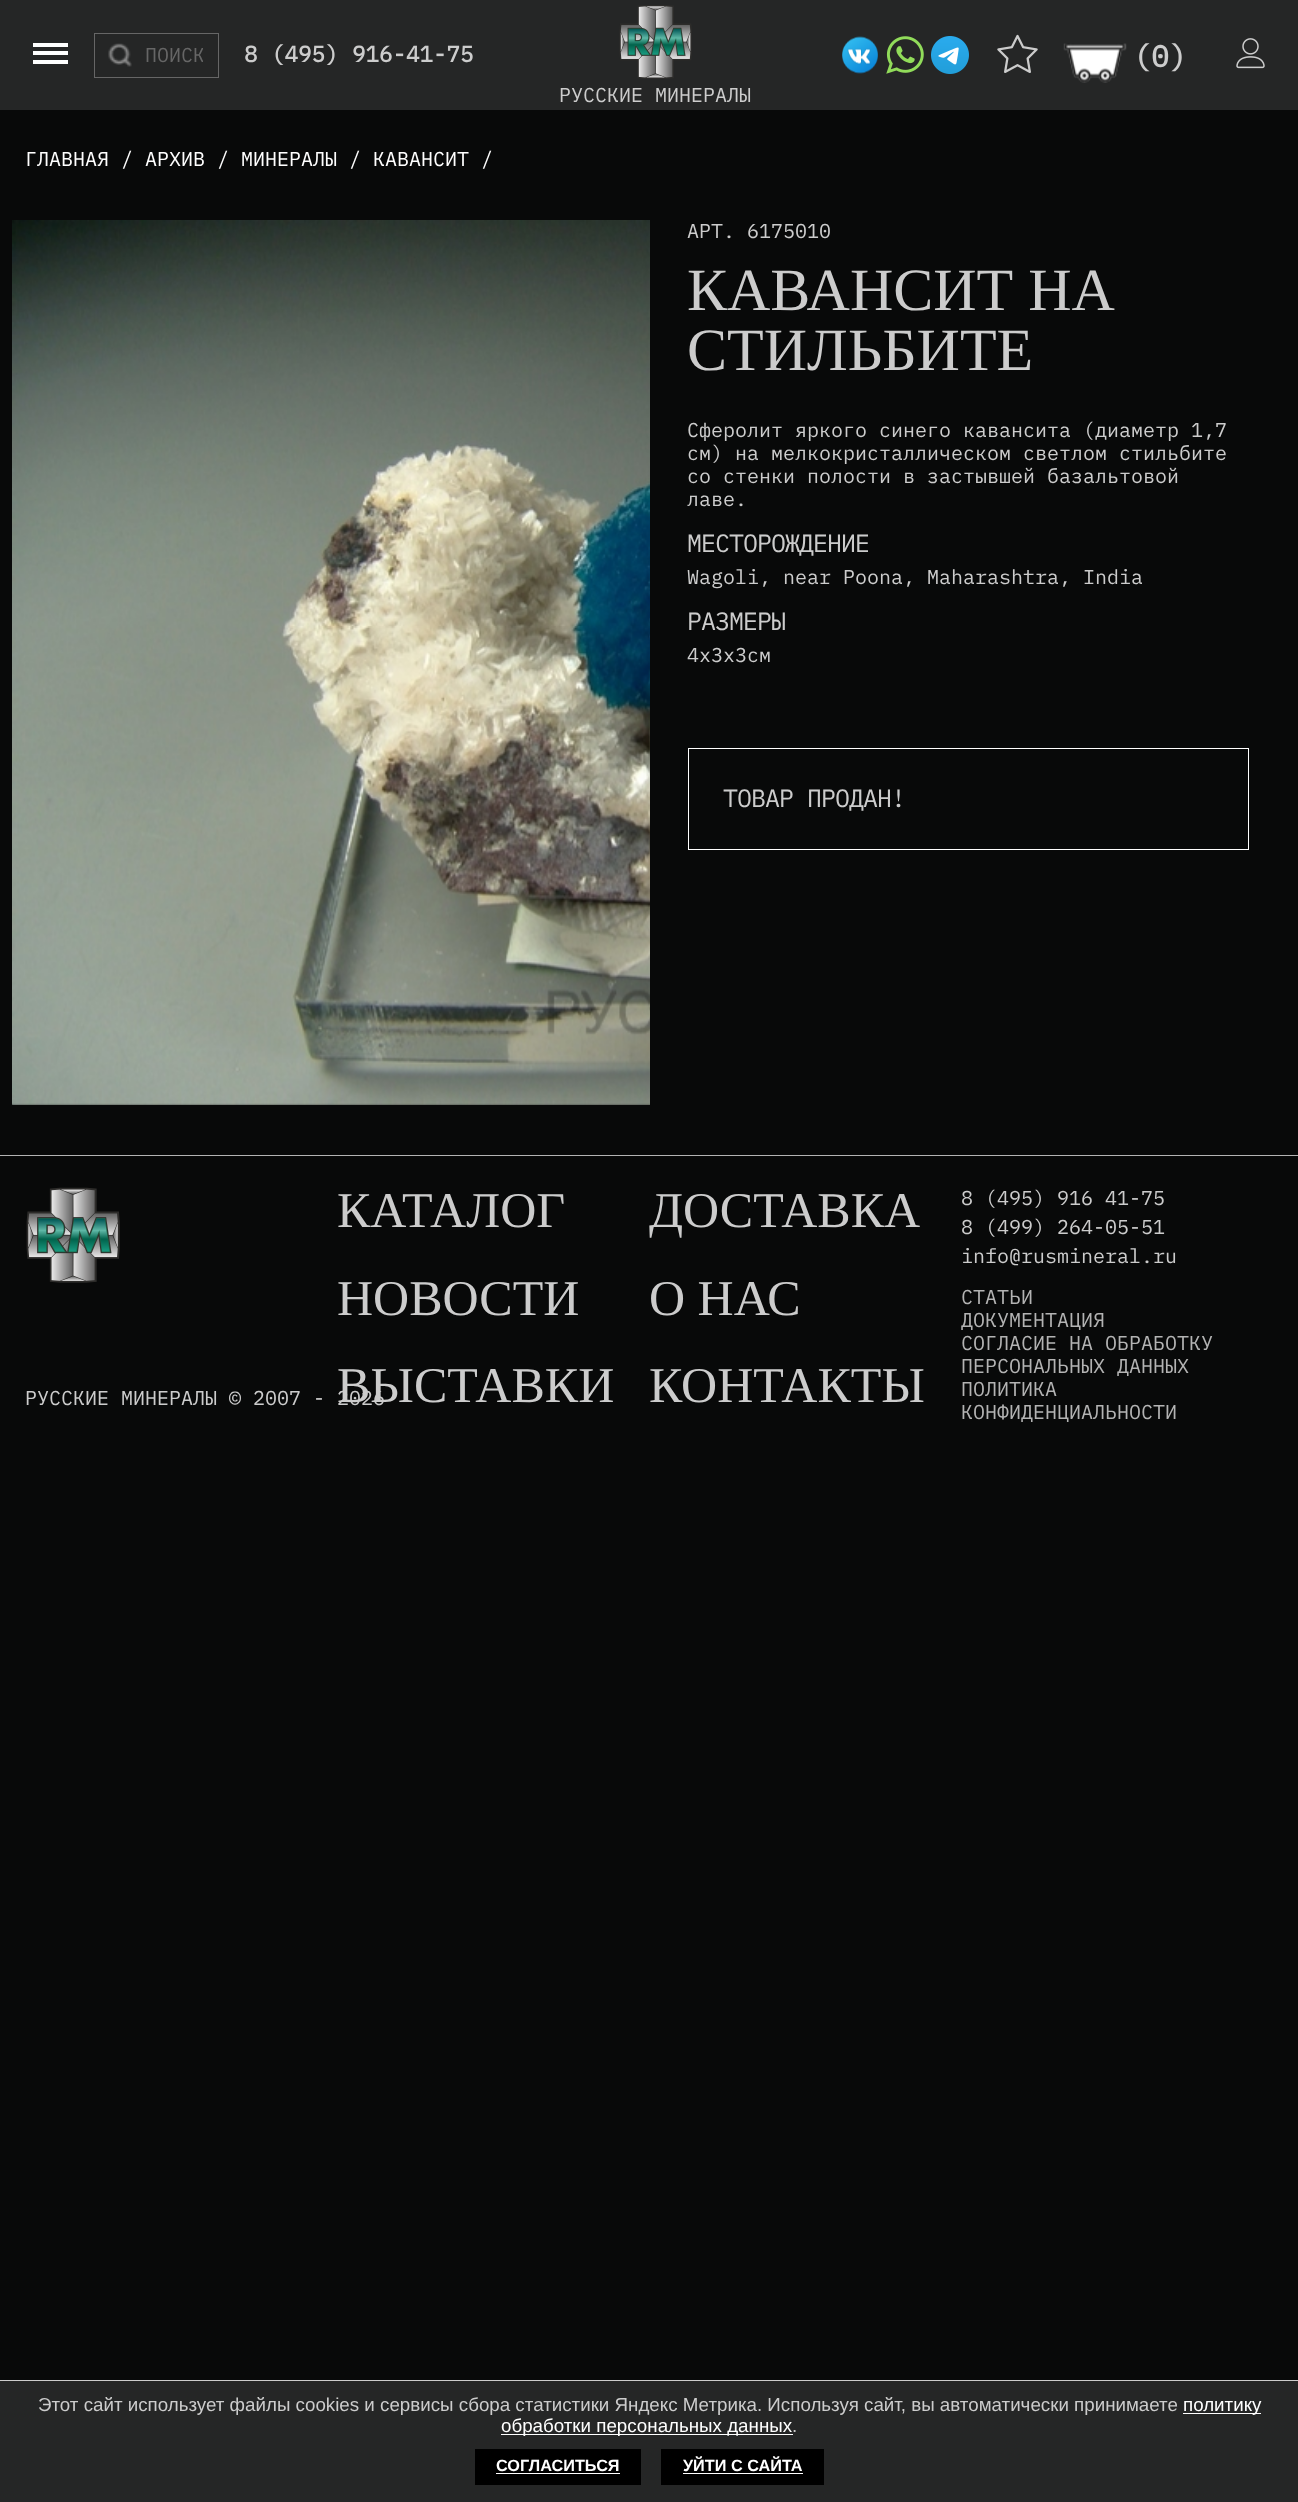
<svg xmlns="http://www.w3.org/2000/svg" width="1298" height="2502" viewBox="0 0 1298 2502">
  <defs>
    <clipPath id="clip1"><rect x="145" y="43" width="58" height="25"/></clipPath>
  </defs>
  <rect width="100%" height="100%" fill="rgb(8,9,9)"/>
  <rect x="0" y="0" width="1298" height="110" fill="rgb(37,38,38)"/>
  <rect x="33" y="43" width="35" height="4" fill="rgb(255,255,255)"/>
  <rect x="33" y="51" width="35" height="4" fill="rgb(255,255,255)"/>
  <rect x="33" y="60" width="35" height="4" fill="rgb(255,255,255)"/>
  <rect x="94.5" y="33.5" width="124" height="44" fill="none" stroke="rgb(102,102,102)"/>
  <image x="108" y="43" width="24" height="24" href="pic1.png"/>
  <g clip-path="url(#clip1)">
    <text x="145" y="62" font-family="IBM Plex Mono" font-size="20" fill="rgb(102,102,102)">ПОИСК</text>
  </g>
  <text x="244" y="62" font-family="IBM Plex Mono" font-size="22.5" font-weight="bold" fill="rgb(204,204,204)">8 (495) 916-41-75</text>
  <image x="842" y="36" width="36" height="38" href="pic2.png"/>
  <image x="886" y="36" width="38" height="38" href="pic3.png"/>
  <image x="931" y="36" width="38" height="38" href="pic4.png"/>
  <image x="997" y="34" width="41" height="39" href="pic5.png"/>
  <image x="1063" y="43" width="64" height="40" href="pic6.png"/>
  <text x="1133" y="67" font-family="IBM Plex Mono" font-size="30" font-weight="bold" fill="rgb(204,204,204)">(0)</text>
  <image x="1236" y="38" width="29" height="31" href="pic7.png"/>
  <image x="619" y="5" width="73" height="74" href="pic8.png"/>
  <text x="559" y="102" font-family="IBM Plex Mono" font-size="20" fill="rgb(204,204,204)">РУССКИЕ МИНЕРАЛЫ</text>
  <text x="25" y="166" font-family="IBM Plex Mono" font-size="20" fill="rgb(255,255,255)">ГЛАВНАЯ / АРХИВ / МИНЕРАЛЫ / КАВАНСИТ /</text>
  <rect x="13" y="1103" width="637" height="2" fill="rgb(51,51,51)"/>
  <image x="12" y="220" width="638" height="885" href="pic9.png"/>
  <text x="687" y="238" font-family="IBM Plex Mono" font-size="20" fill="rgb(204,204,204)">АРТ. 6175010</text>
  <g font-family="Liberation Serif" font-size="60" fill="rgb(204,204,204)">
    <text>
      <tspan x="687" y="310">КАВАНСИТ НА</tspan>
      <tspan x="687" y="370">СТИЛЬБИТЕ</tspan>
    </text>
  </g>
  <g font-family="IBM Plex Mono" font-size="20" fill="rgb(204,204,204)">
    <text>
      <tspan x="687" y="437">Сферолит яркого синего кавансита (диаметр 1,7</tspan>
      <tspan x="687" y="460">см) на мелкокристаллическом светлом стильбите</tspan>
      <tspan x="687" y="483">со стенки полости в застывшей базальтовой</tspan>
      <tspan x="687" y="506">лаве.</tspan>
    </text>
  </g>
  <text x="687" y="552" font-family="IBM Plex Mono" font-size="25" letter-spacing="-1" fill="rgb(204,204,204)">МЕСТОРОЖДЕНИЕ</text>
  <text x="687" y="584" font-family="IBM Plex Mono" font-size="20" fill="rgb(204,204,204)">Wagoli, near Poona, Maharashtra, India</text>
  <text x="687" y="630" font-family="IBM Plex Mono" font-size="25" letter-spacing="-1" fill="rgb(204,204,204)">РАЗМЕРЫ</text>
  <text x="687" y="662" font-family="IBM Plex Mono" font-size="20" fill="rgb(204,204,204)">4х3х3см</text>
  <rect x="688.5" y="748.5" width="560" height="101" fill="none" stroke="rgb(255,255,255)"/>
  <text x="723" y="807" font-family="IBM Plex Mono" font-size="25" letter-spacing="-1" fill="rgb(204,204,204)">ТОВАР ПРОДАН!</text>
  <rect x="0" y="1155" width="1298" height="1" fill="rgb(179,179,179)"/>
  <image x="26" y="1187" width="94" height="96" href="pic10.png"/>
  <text x="337" y="1402" font-family="Liberation Serif" font-size="50" fill="rgb(204,204,204)">ВЫСТАВКИ</text>
  <text x="25" y="1405" font-family="IBM Plex Mono" font-size="20" fill="rgb(204,204,204)">РУССКИЕ МИНЕРАЛЫ © 2007 - 2026</text>
  <g font-family="Liberation Serif" font-size="50" fill="rgb(204,204,204)">
    <text>
      <tspan x="337" y="1227">КАТАЛОГ</tspan>
      <tspan x="337" y="1315">НОВОСТИ</tspan>
    </text>
    <text>
      <tspan x="649" y="1227">ДОСТАВКА</tspan>
      <tspan x="649" y="1315">О НАС</tspan>
      <tspan x="649" y="1402">КОНТАКТЫ</tspan>
    </text>
  </g>
  <g font-family="IBM Plex Mono" font-size="20" fill="rgb(204,204,204)">
    <text>
      <tspan x="961" y="1205">8 (495) 916 41-75</tspan>
      <tspan x="961" y="1234">8 (499) 264-05-51</tspan>
      <tspan x="961" y="1263">info@rusmineral.ru</tspan>
    </text>
  </g>
  <g font-family="IBM Plex Mono" font-size="20" fill="rgb(179,179,179)">
    <text>
      <tspan x="961" y="1304">СТАТЬИ</tspan>
      <tspan x="961" y="1327">ДОКУМЕНТАЦИЯ</tspan>
      <tspan x="961" y="1350">СОГЛАСИЕ НА ОБРАБОТКУ</tspan>
      <tspan x="961" y="1373">ПЕРСОНАЛЬНЫХ ДАННЫХ</tspan>
      <tspan x="961" y="1396">ПОЛИТИКА</tspan>
      <tspan x="961" y="1419">КОНФИДЕНЦИАЛЬНОСТИ</tspan>
    </text>
  </g>
  <rect x="0" y="2381" width="1298" height="121" fill="rgb(37,38,38)"/>
  <rect x="0" y="2380" width="1298" height="1" fill="rgb(204,204,204)"/>
  <text x="38" y="2411" font-family="Liberation Sans" font-size="18.75" fill="rgb(204,204,204)">Этот сайт использует файлы cookies и сервисы сбора статистики Яндекс Метрика. Используя сайт, вы автоматически принимаете</text>
  <rect x="1183" y="2413" width="78" height="1" fill="rgb(255,255,255)"/>
  <text x="1183" y="2411" font-family="Liberation Sans" font-size="18.75" fill="rgb(255,255,255)">политику</text>
  <rect x="501" y="2434" width="292" height="1" fill="rgb(255,255,255)"/>
  <text x="501" y="2432" font-family="Liberation Sans" font-size="18.75" fill="rgb(255,255,255)">обработки персональных данных</text>
  <text x="792" y="2432" font-family="Liberation Sans" font-size="18.75" fill="rgb(204,204,204)">.</text>
  <rect x="475" y="2449" width="166" height="36" fill="rgb(0,0,0)"/>
  <text x="496" y="2471" font-family="Liberation Sans" font-size="16.25" font-weight="bold" fill="rgb(255,255,255)">СОГЛАСИТЬСЯ</text>
  <rect x="496" y="2473" width="124" height="1" fill="rgb(255,255,255)"/>
  <rect x="661" y="2449" width="163" height="36" fill="rgb(0,0,0)"/>
  <text x="683" y="2471" font-family="Liberation Sans" font-size="16.25" font-weight="bold" fill="rgb(255,255,255)">УЙТИ С САЙТА</text>
  <rect x="683" y="2473" width="120" height="1" fill="rgb(255,255,255)"/>
</svg>
